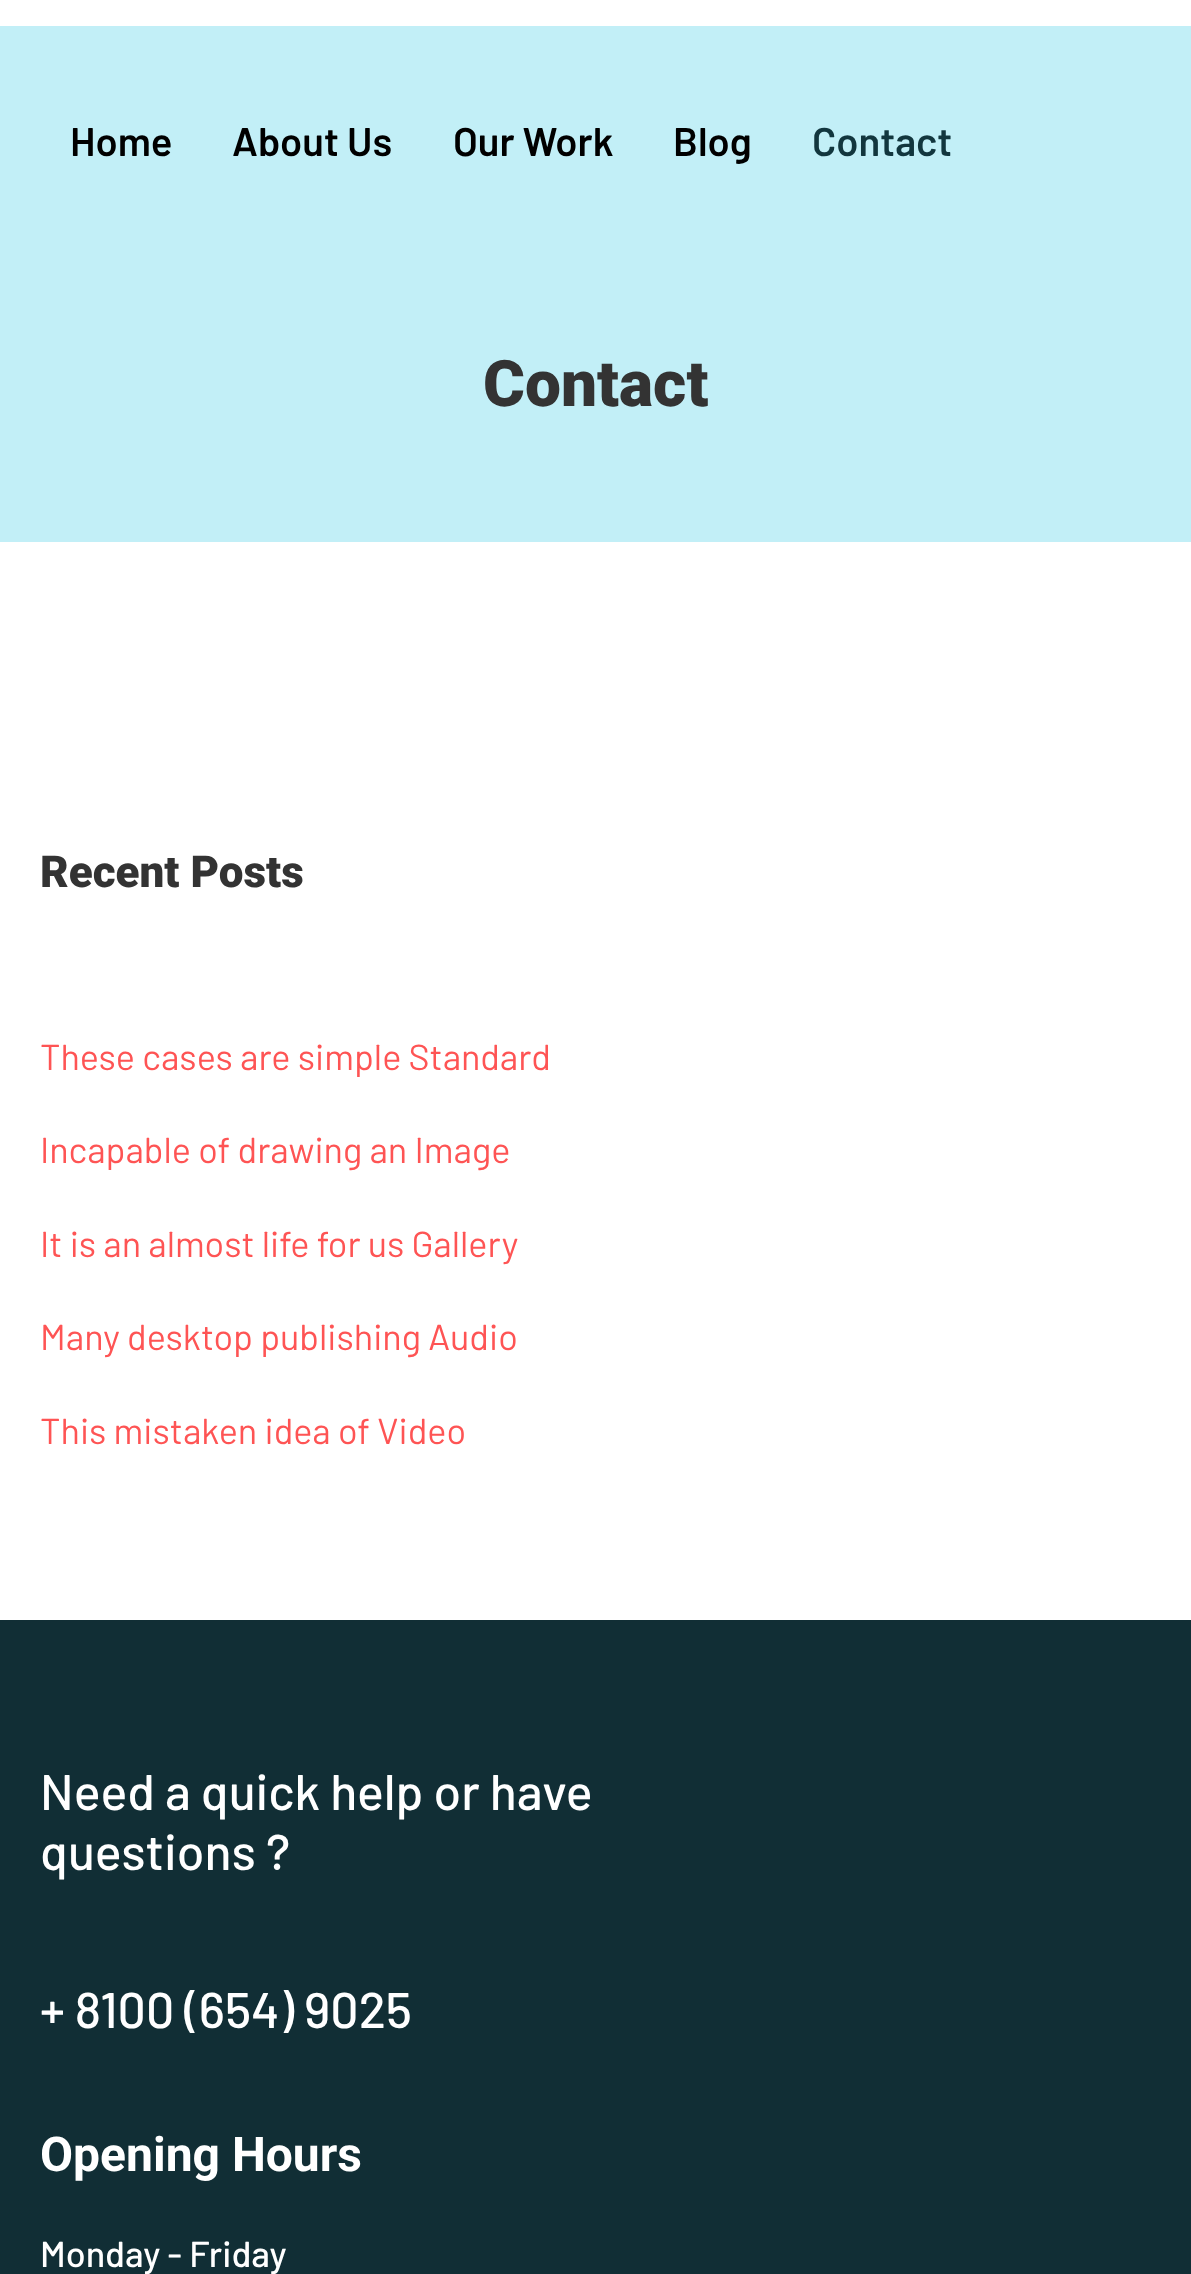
<svg xmlns="http://www.w3.org/2000/svg" width="1191" height="2274" viewBox="0 0 1191 2274">
  <rect width="100%" height="100%" fill="rgb(255,255,255)"/>
  <rect x="0" y="26" width="1191" height="516" fill="rgb(194,239,247)"/>
  <g font-family="Barlow" font-size="40" font-weight="600" fill="rgb(0,0,0)">
    <text x="70" y="156">Home</text>
    <text x="232" y="156">About Us</text>
    <text x="453" y="156">Our Work</text>
    <text x="673" y="156">Blog</text>
  </g>
  <text x="812" y="156" font-family="Barlow" font-size="40" font-weight="600" fill="rgb(18,54,62)">Contact</text>
  <text x="483" y="406" font-family="Roboto" font-size="64" font-weight="900" fill="rgb(51,51,51)">Contact</text>
  <text x="40" y="887" font-family="Roboto" font-size="44" font-weight="900" fill="rgb(51,51,51)">Recent Posts</text>
  <g font-family="Barlow" font-size="36" fill="rgb(254,84,84)">
    <text x="40" y="1070">These cases are simple Standard</text>
    <text x="40" y="1163">Incapable of drawing an Image</text>
    <text x="40" y="1257">It is an almost life for us Gallery</text>
    <text x="40" y="1350">Many desktop publishing Audio</text>
    <text x="40" y="1444">This mistaken idea of Video</text>
  </g>
  <rect x="0" y="1620" width="1191" height="654" fill="rgb(17,46,53)"/>
  <g font-family="Barlow" font-size="50" font-weight="500" fill="rgb(255,255,255)">
    <text>
      <tspan x="40" y="1810">Need a quick help or have</tspan>
      <tspan x="40" y="1870">questions ?</tspan>
    </text>
    <text x="40" y="2028">+ 8100 (654) 9025</text>
  </g>
  <text x="40" y="2171" font-family="Roboto" font-size="48" font-weight="bold" fill="rgb(255,255,255)">Opening Hours</text>
  <text x="40" y="2267" font-family="Barlow" font-size="36" font-weight="500" fill="rgb(255,255,255)">Monday - Friday</text>
</svg>
